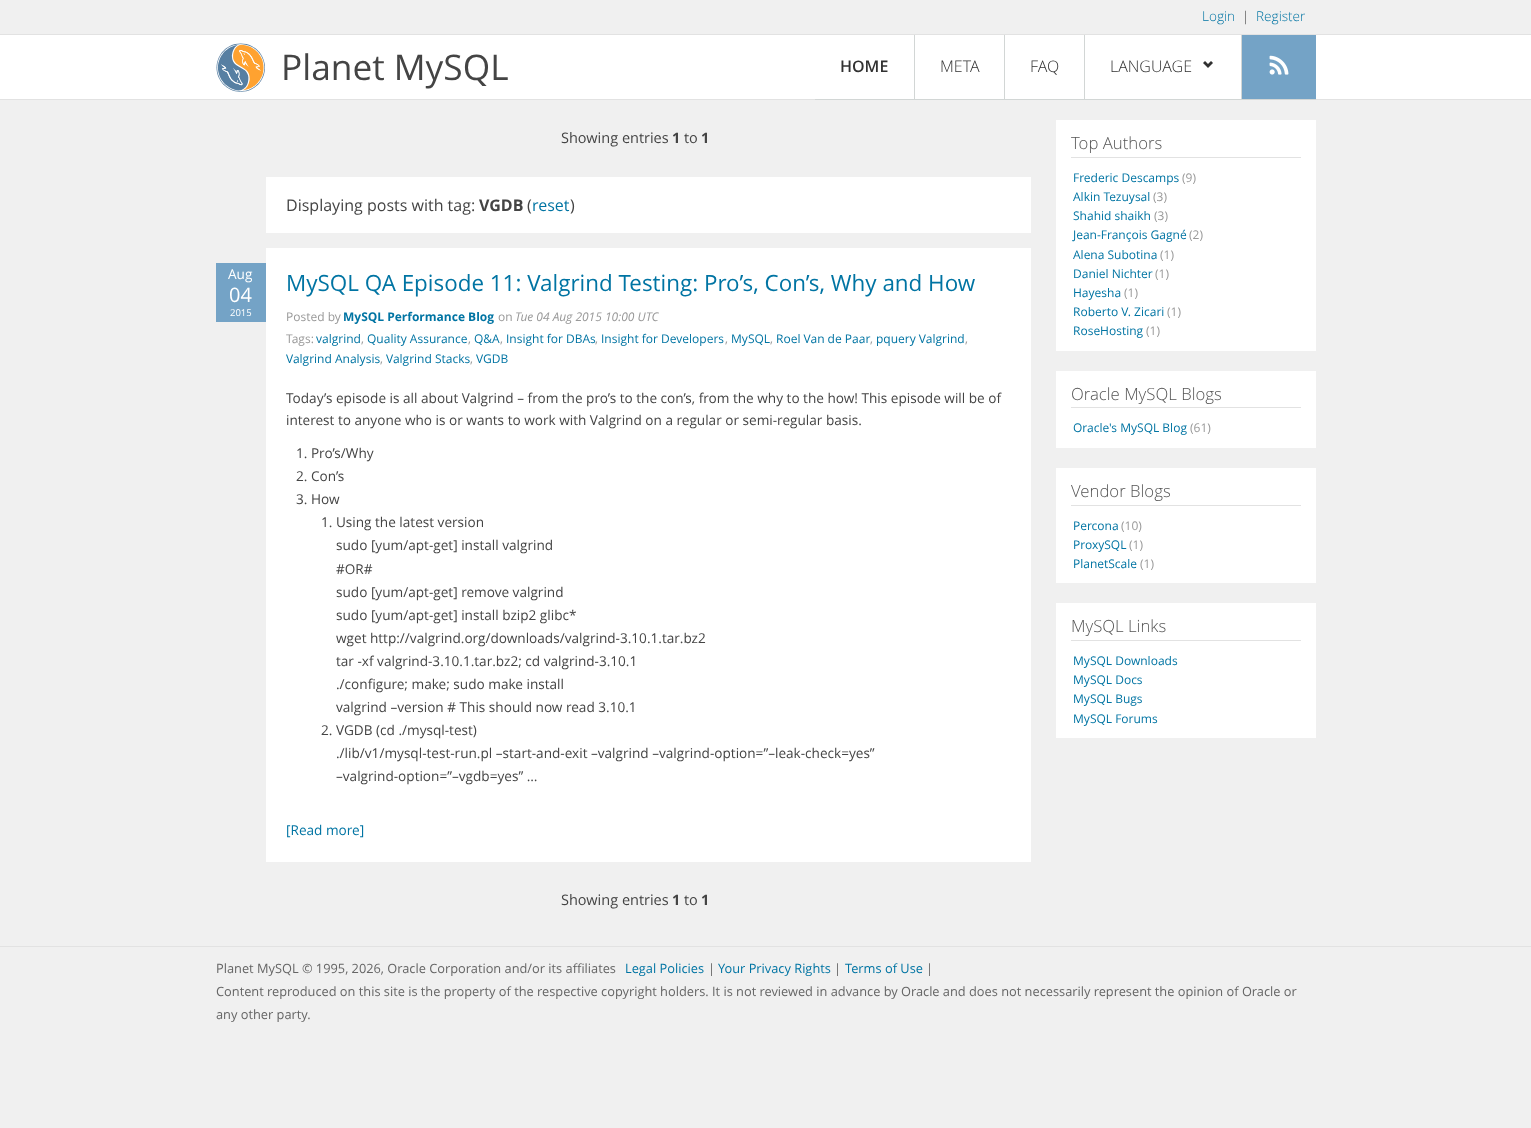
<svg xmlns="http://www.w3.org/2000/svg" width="1531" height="1128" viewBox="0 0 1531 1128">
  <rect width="100%" height="100%" fill="rgb(240,240,240)"/>
  <rect x="0" y="34" width="1531" height="1" fill="rgb(226,226,226)"/>
  <text x="1202" y="21" font-family="Open Sans" font-size="13.6" font-weight="300" fill="rgb(0,116,163)">Login</text>
  <text x="1242" y="21" font-family="Open Sans" font-size="13.6" font-weight="300" fill="rgb(68,68,68)">|</text>
  <text x="1256" y="21" font-family="Open Sans" font-size="13.6" font-weight="300" fill="rgb(0,116,163)">Register</text>
  <rect x="0" y="35" width="1531" height="64" fill="rgb(255,255,255)"/>
  <rect x="0" y="99" width="1531" height="1" fill="rgb(226,226,226)"/>
  <image x="216" y="43" width="49" height="49" href="pic1.png"/>
  <text x="281" y="80" font-family="Open Sans" font-size="35.25" fill="rgb(68,68,68)">Planet MySQL</text>
  <rect x="815" y="99" width="501" height="1" fill="rgb(210,214,213)"/>
  <text x="840" y="72" font-family="Open Sans" font-size="16" font-weight="600" fill="rgb(49,49,49)">HOME</text>
  <rect x="914" y="35" width="1" height="65" fill="rgb(210,214,213)"/>
  <text x="940" y="72" font-family="Open Sans" font-size="16" font-weight="300" fill="rgb(49,49,49)">META</text>
  <rect x="1004" y="35" width="1" height="65" fill="rgb(210,214,213)"/>
  <text x="1030" y="72" font-family="Open Sans" font-size="16" font-weight="300" fill="rgb(49,49,49)">FAQ</text>
  <rect x="1084" y="35" width="1" height="65" fill="rgb(210,214,213)"/>
  <text x="1110" y="72" font-family="Open Sans" font-size="16" font-weight="300" fill="rgb(49,49,49)">LANGUAGE</text>
  <image x="1203" y="61" width="10" height="7" href="pic2.png"/>
  <rect x="1241" y="35" width="1" height="65" fill="rgb(210,214,213)"/>
  <rect x="1242" y="35" width="74" height="64" fill="rgb(116,163,198)"/>
  <image x="1269" y="55" width="20" height="20" href="pic3.png"/>
  <text x="561" y="143" font-family="Open Sans" font-size="14.5" fill="rgb(68,68,68)">Showing entries</text>
  <text x="672" y="143" font-family="Open Sans" font-size="14.5" font-weight="bold" fill="rgb(68,68,68)">1</text>
  <text x="684" y="143" font-family="Open Sans" font-size="14.5" fill="rgb(68,68,68)">to</text>
  <text x="701" y="143" font-family="Open Sans" font-size="14.5" font-weight="bold" fill="rgb(68,68,68)">1</text>
  <rect x="266" y="177" width="765" height="56" fill="rgb(255,255,255)"/>
  <text x="286" y="211" font-family="Open Sans" font-size="16" fill="rgb(68,68,68)">Displaying posts with tag:</text>
  <text x="479" y="211" font-family="Open Sans" font-size="16" font-weight="bold" fill="rgb(68,68,68)">VGDB</text>
  <text x="527" y="211" font-family="Open Sans" font-size="16" fill="rgb(68,68,68)">(</text>
  <text x="532" y="211" font-family="Open Sans" font-size="16" fill="rgb(0,116,163)">reset</text>
  <text x="570" y="211" font-family="Open Sans" font-size="16" fill="rgb(68,68,68)">)</text>
  <rect x="266" y="248" width="765" height="614" fill="rgb(255,255,255)"/>
  <rect x="216" y="263" width="50" height="59" fill="rgb(116,163,198)"/>
  <text x="228" y="279" font-family="Open Sans" font-size="13.6" fill="rgb(255,255,255)">Aug</text>
  <text x="229" y="302" font-family="Open Sans" font-size="20" fill="rgb(255,255,255)">04</text>
  <text x="230" y="316" font-family="Open Sans" font-size="9.5" fill="rgb(255,255,255)">2015</text>
  <text x="286" y="291" font-family="Open Sans" font-size="22.4" fill="rgb(0,116,163)">MySQL QA Episode 11: Valgrind Testing: Pro’s, Con’s, Why and How</text>
  <text x="286" y="321" font-family="Open Sans" font-size="12" fill="rgb(153,153,153)">Posted by</text>
  <text x="343" y="321" font-family="Open Sans" font-size="12" font-weight="bold" fill="rgb(0,116,163)">MySQL Performance Blog</text>
  <text x="498" y="321" font-family="Open Sans" font-size="12" fill="rgb(153,153,153)">on</text>
  <text x="515" y="321" font-family="Open Sans" font-size="12" font-style="italic" fill="rgb(153,153,153)">Tue 04 Aug 2015 10:00 UTC</text>
  <text x="286" y="343" font-family="Open Sans" font-size="12" fill="rgb(153,153,153)">Tags:</text>
  <text x="316" y="343" font-family="Open Sans" font-size="12" fill="rgb(0,116,163)">valgrind</text>
  <text x="361" y="343" font-family="Open Sans" font-size="12" fill="rgb(153,153,153)">,</text>
  <text x="367" y="343" font-family="Open Sans" font-size="12" fill="rgb(0,116,163)">Quality Assurance</text>
  <text x="468" y="343" font-family="Open Sans" font-size="12" fill="rgb(153,153,153)">,</text>
  <text x="474" y="343" font-family="Open Sans" font-size="12" fill="rgb(0,116,163)">Q&amp;A</text>
  <text x="500" y="343" font-family="Open Sans" font-size="12" fill="rgb(153,153,153)">,</text>
  <text x="506" y="343" font-family="Open Sans" font-size="12" fill="rgb(0,116,163)">Insight for DBAs</text>
  <text x="595" y="343" font-family="Open Sans" font-size="12" fill="rgb(153,153,153)">,</text>
  <text x="601" y="343" font-family="Open Sans" font-size="12" fill="rgb(0,116,163)">Insight for Developers</text>
  <text x="725" y="343" font-family="Open Sans" font-size="12" fill="rgb(153,153,153)">,</text>
  <text x="731" y="343" font-family="Open Sans" font-size="12" fill="rgb(0,116,163)">MySQL</text>
  <text x="770" y="343" font-family="Open Sans" font-size="12" fill="rgb(153,153,153)">,</text>
  <text x="776" y="343" font-family="Open Sans" font-size="12" fill="rgb(0,116,163)">Roel Van de Paar</text>
  <text x="870" y="343" font-family="Open Sans" font-size="12" fill="rgb(153,153,153)">,</text>
  <text x="876" y="343" font-family="Open Sans" font-size="12" fill="rgb(0,116,163)">pquery Valgrind</text>
  <text x="965" y="343" font-family="Open Sans" font-size="12" fill="rgb(153,153,153)">,</text>
  <text x="286" y="363" font-family="Open Sans" font-size="12" fill="rgb(0,116,163)">Valgrind Analysis</text>
  <text x="380" y="363" font-family="Open Sans" font-size="12" fill="rgb(153,153,153)">,</text>
  <text x="386" y="363" font-family="Open Sans" font-size="12" fill="rgb(0,116,163)">Valgrind Stacks</text>
  <text x="470" y="363" font-family="Open Sans" font-size="12" fill="rgb(153,153,153)">,</text>
  <text x="476" y="363" font-family="Open Sans" font-size="12" fill="rgb(0,116,163)">VGDB</text>
  <g font-family="Open Sans" font-size="13.6" fill="rgb(68,68,68)">
    <text>
      <tspan x="286" y="403">Today’s episode is all about Valgrind – from the pro’s to the con’s, from the why to the how! This episode will be of</tspan>
      <tspan x="286" y="425">interest to anyone who is or wants to work with Valgrind on a regular or semi-regular basis.</tspan>
    </text>
    <text>
      <tspan x="296" y="458">1. Pro’s/Why</tspan>
      <tspan x="296" y="481">2. Con’s</tspan>
      <tspan x="296" y="504">3. How</tspan>
    </text>
    <text x="321" y="527">1. Using the latest version</text>
    <text>
      <tspan x="336" y="550">sudo [yum/apt-get] install valgrind</tspan>
      <tspan x="336" y="574">#OR#</tspan>
      <tspan x="336" y="597">sudo [yum/apt-get] remove valgrind</tspan>
      <tspan x="336" y="620">sudo [yum/apt-get] install bzip2 glibc*</tspan>
      <tspan x="336" y="643">wget http://valgrind.org/downloads/valgrind-3.10.1.tar.bz2</tspan>
      <tspan x="336" y="666">tar -xf valgrind-3.10.1.tar.bz2; cd valgrind-3.10.1</tspan>
      <tspan x="336" y="689">./configure; make; sudo make install</tspan>
      <tspan x="336" y="712">valgrind –version # This should now read 3.10.1</tspan>
    </text>
    <text x="321" y="735">2. VGDB (cd ./mysql-test)</text>
    <text>
      <tspan x="336" y="758">./lib/v1/mysql-test-run.pl –start-and-exit –valgrind –valgrind-option=”–leak-check=yes”</tspan>
      <tspan x="336" y="781">–valgrind-option=”–vgdb=yes” …</tspan>
    </text>
  </g>
  <text x="286" y="835" font-family="Open Sans" font-size="13.6" fill="rgb(0,116,163)">[Read more]</text>
  <text x="561" y="905" font-family="Open Sans" font-size="14.5" fill="rgb(68,68,68)">Showing entries</text>
  <text x="672" y="905" font-family="Open Sans" font-size="14.5" font-weight="bold" fill="rgb(68,68,68)">1</text>
  <text x="684" y="905" font-family="Open Sans" font-size="14.5" fill="rgb(68,68,68)">to</text>
  <text x="701" y="905" font-family="Open Sans" font-size="14.5" font-weight="bold" fill="rgb(68,68,68)">1</text>
  <rect x="1056" y="120" width="260" height="231" fill="rgb(255,255,255)"/>
  <rect x="1071" y="157" width="230" height="1" fill="rgb(226,226,226)"/>
  <text x="1071" y="149" font-family="Open Sans" font-size="16.75" font-weight="300" fill="rgb(85,85,85)">Top Authors</text>
  <text x="1073" y="182" font-family="Open Sans" font-size="12" fill="rgb(0,116,163)">Frederic Descamps</text>
  <text x="1182" y="182" font-family="Open Sans" font-size="12" fill="rgb(153,153,153)">(9)</text>
  <text x="1073" y="201" font-family="Open Sans" font-size="12" fill="rgb(0,116,163)">Alkin Tezuysal</text>
  <text x="1153" y="201" font-family="Open Sans" font-size="12" fill="rgb(153,153,153)">(3)</text>
  <text x="1073" y="220" font-family="Open Sans" font-size="12" fill="rgb(0,116,163)">Shahid shaikh</text>
  <text x="1154" y="220" font-family="Open Sans" font-size="12" fill="rgb(153,153,153)">(3)</text>
  <text x="1073" y="239" font-family="Open Sans" font-size="12" fill="rgb(0,116,163)">Jean-François Gagné</text>
  <text x="1189" y="239" font-family="Open Sans" font-size="12" fill="rgb(153,153,153)">(2)</text>
  <text x="1073" y="259" font-family="Open Sans" font-size="12" fill="rgb(0,116,163)">Alena Subotina</text>
  <text x="1160" y="259" font-family="Open Sans" font-size="12" fill="rgb(153,153,153)">(1)</text>
  <text x="1073" y="278" font-family="Open Sans" font-size="12" fill="rgb(0,116,163)">Daniel Nichter</text>
  <text x="1155" y="278" font-family="Open Sans" font-size="12" fill="rgb(153,153,153)">(1)</text>
  <text x="1073" y="297" font-family="Open Sans" font-size="12" fill="rgb(0,116,163)">Hayesha</text>
  <text x="1124" y="297" font-family="Open Sans" font-size="12" fill="rgb(153,153,153)">(1)</text>
  <text x="1073" y="316" font-family="Open Sans" font-size="12" fill="rgb(0,116,163)">Roberto V. Zicari</text>
  <text x="1167" y="316" font-family="Open Sans" font-size="12" fill="rgb(153,153,153)">(1)</text>
  <text x="1073" y="335" font-family="Open Sans" font-size="12" fill="rgb(0,116,163)">RoseHosting</text>
  <text x="1146" y="335" font-family="Open Sans" font-size="12" fill="rgb(153,153,153)">(1)</text>
  <rect x="1056" y="371" width="260" height="77" fill="rgb(255,255,255)"/>
  <rect x="1071" y="407" width="230" height="1" fill="rgb(226,226,226)"/>
  <text x="1071" y="400" font-family="Open Sans" font-size="16.75" font-weight="300" fill="rgb(85,85,85)">Oracle MySQL Blogs</text>
  <text x="1073" y="432" font-family="Open Sans" font-size="12" fill="rgb(0,116,163)">Oracle's MySQL Blog</text>
  <text x="1190" y="432" font-family="Open Sans" font-size="12" fill="rgb(153,153,153)">(61)</text>
  <rect x="1056" y="468" width="260" height="115" fill="rgb(255,255,255)"/>
  <rect x="1071" y="505" width="230" height="1" fill="rgb(226,226,226)"/>
  <text x="1071" y="497" font-family="Open Sans" font-size="16.75" font-weight="300" fill="rgb(85,85,85)">Vendor Blogs</text>
  <text x="1073" y="530" font-family="Open Sans" font-size="12" fill="rgb(0,116,163)">Percona</text>
  <text x="1121" y="530" font-family="Open Sans" font-size="12" fill="rgb(153,153,153)">(10)</text>
  <text x="1073" y="549" font-family="Open Sans" font-size="12" fill="rgb(0,116,163)">ProxySQL</text>
  <text x="1129" y="549" font-family="Open Sans" font-size="12" fill="rgb(153,153,153)">(1)</text>
  <text x="1073" y="568" font-family="Open Sans" font-size="12" fill="rgb(0,116,163)">PlanetScale</text>
  <text x="1140" y="568" font-family="Open Sans" font-size="12" fill="rgb(153,153,153)">(1)</text>
  <rect x="1056" y="603" width="260" height="135" fill="rgb(255,255,255)"/>
  <rect x="1071" y="640" width="230" height="1" fill="rgb(226,226,226)"/>
  <text x="1071" y="632" font-family="Open Sans" font-size="16.75" font-weight="300" fill="rgb(85,85,85)">MySQL Links</text>
  <g font-family="Open Sans" font-size="12" fill="rgb(0,116,163)">
    <text>
      <tspan x="1073" y="665">MySQL Downloads</tspan>
      <tspan x="1073" y="684">MySQL Docs</tspan>
      <tspan x="1073" y="703">MySQL Bugs</tspan>
      <tspan x="1073" y="723">MySQL Forums</tspan>
    </text>
  </g>
  <rect x="0" y="946" width="1531" height="1" fill="rgb(226,226,226)"/>
  <text x="216" y="973" font-family="Open Sans" font-size="12.8" fill="rgb(102,102,102)">Planet MySQL © 1995, 2026, Oracle Corporation and/or its affiliates</text>
  <text x="625" y="973" font-family="Open Sans" font-size="12.8" fill="rgb(0,116,163)">Legal Policies</text>
  <text x="708" y="973" font-family="Open Sans" font-size="12.8" fill="rgb(102,102,102)">|</text>
  <text x="718" y="973" font-family="Open Sans" font-size="12.8" fill="rgb(0,116,163)">Your Privacy Rights</text>
  <text x="834" y="973" font-family="Open Sans" font-size="12.8" fill="rgb(102,102,102)">|</text>
  <text x="845" y="973" font-family="Open Sans" font-size="12.8" fill="rgb(0,116,163)">Terms of Use</text>
  <g font-family="Open Sans" font-size="12.8" fill="rgb(102,102,102)">
    <text x="926" y="973">|</text>
    <text>
      <tspan x="216" y="996">Content reproduced on this site is the property of the respective copyright holders. It is not reviewed in advance by Oracle and does not necessarily represent the opinion of Oracle or</tspan>
      <tspan x="216" y="1019">any other party.</tspan>
    </text>
  </g>
</svg>
